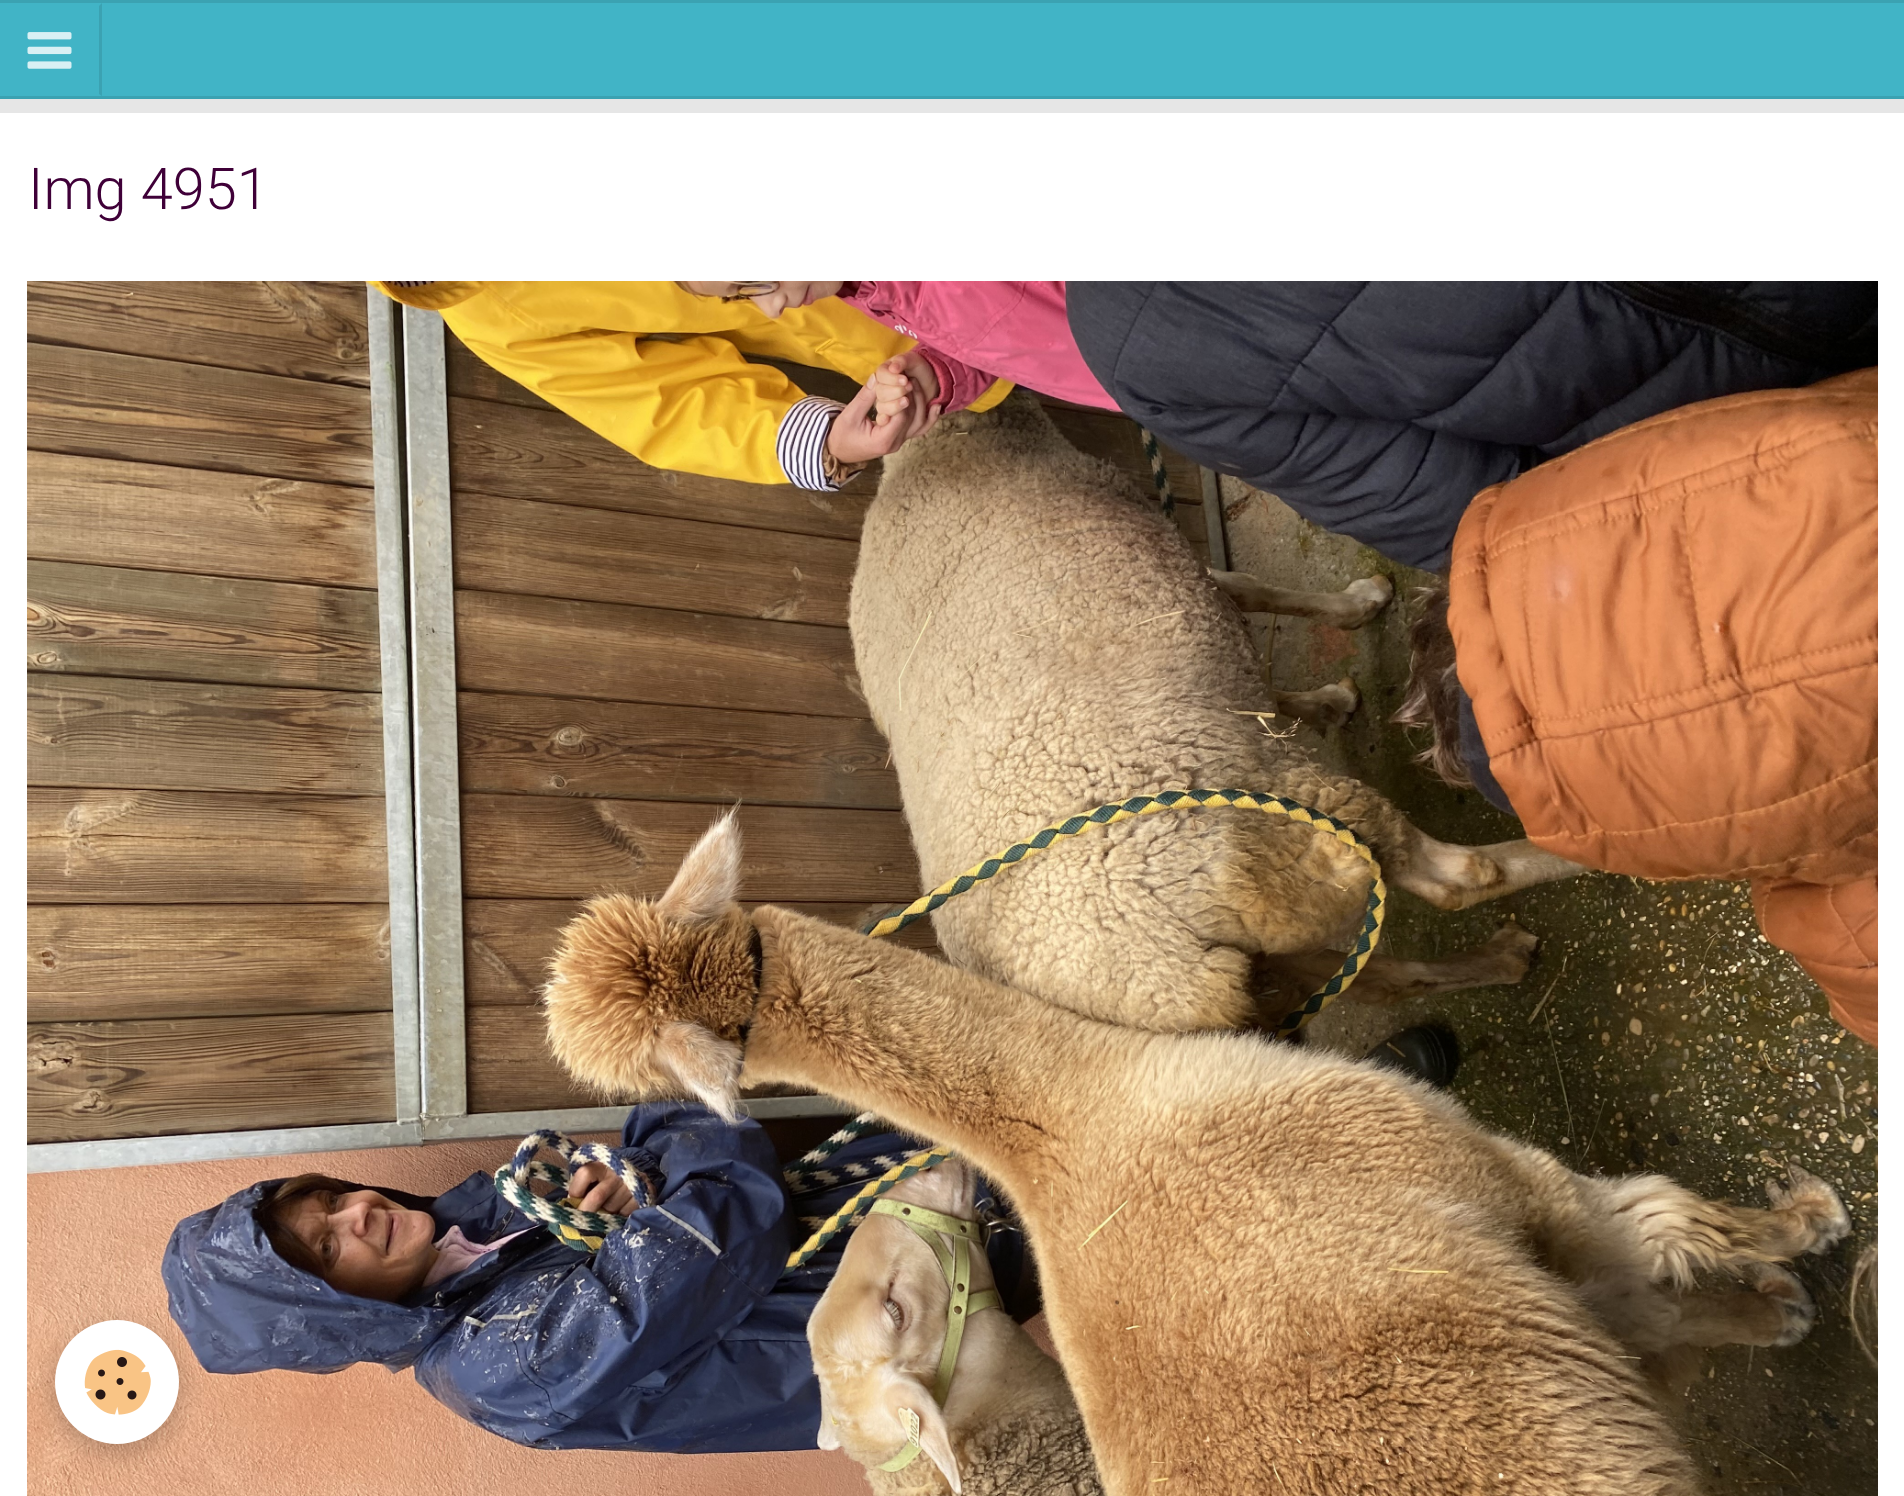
<svg xmlns="http://www.w3.org/2000/svg" width="1904" height="1496" viewBox="0 0 1904 1496">
  <rect width="100%" height="100%" fill="rgb(255,255,255)"/>
  <path d="M0 99V113H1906V14V99Z" fill="rgb(230,230,230)"/>
  <rect x="0" y="3" width="1904" height="93" fill="rgb(65,180,198)"/>
  <rect x="0" y="0" width="1904" height="3" fill="rgb(59,162,178)"/>
  <rect x="0" y="96" width="1904" height="3" fill="rgb(59,162,178)"/>
  <path d="M102 3V96L99 94V6Z" fill="rgb(59,162,178)"/>
  <image x="27" y="32" width="45" height="37" href="pic1.png"/>
  <text x="28" y="209" font-family="Roboto" font-size="57.75" font-weight="300" fill="rgb(63,0,56)">Img 4951</text>
  <image x="27" y="281" width="1851" height="1215" href="pic2.png"/>
  <rect x="55" y="1328" width="124" height="124" rx="62" fill="rgba(0,0,0,0.24)" filter="blur(14px)"/>
  <circle cx="117" cy="1382" r="62" fill="rgb(255,255,255)"/>
  <image x="84" y="1349" width="67" height="66" href="pic3.png"/>
</svg>
